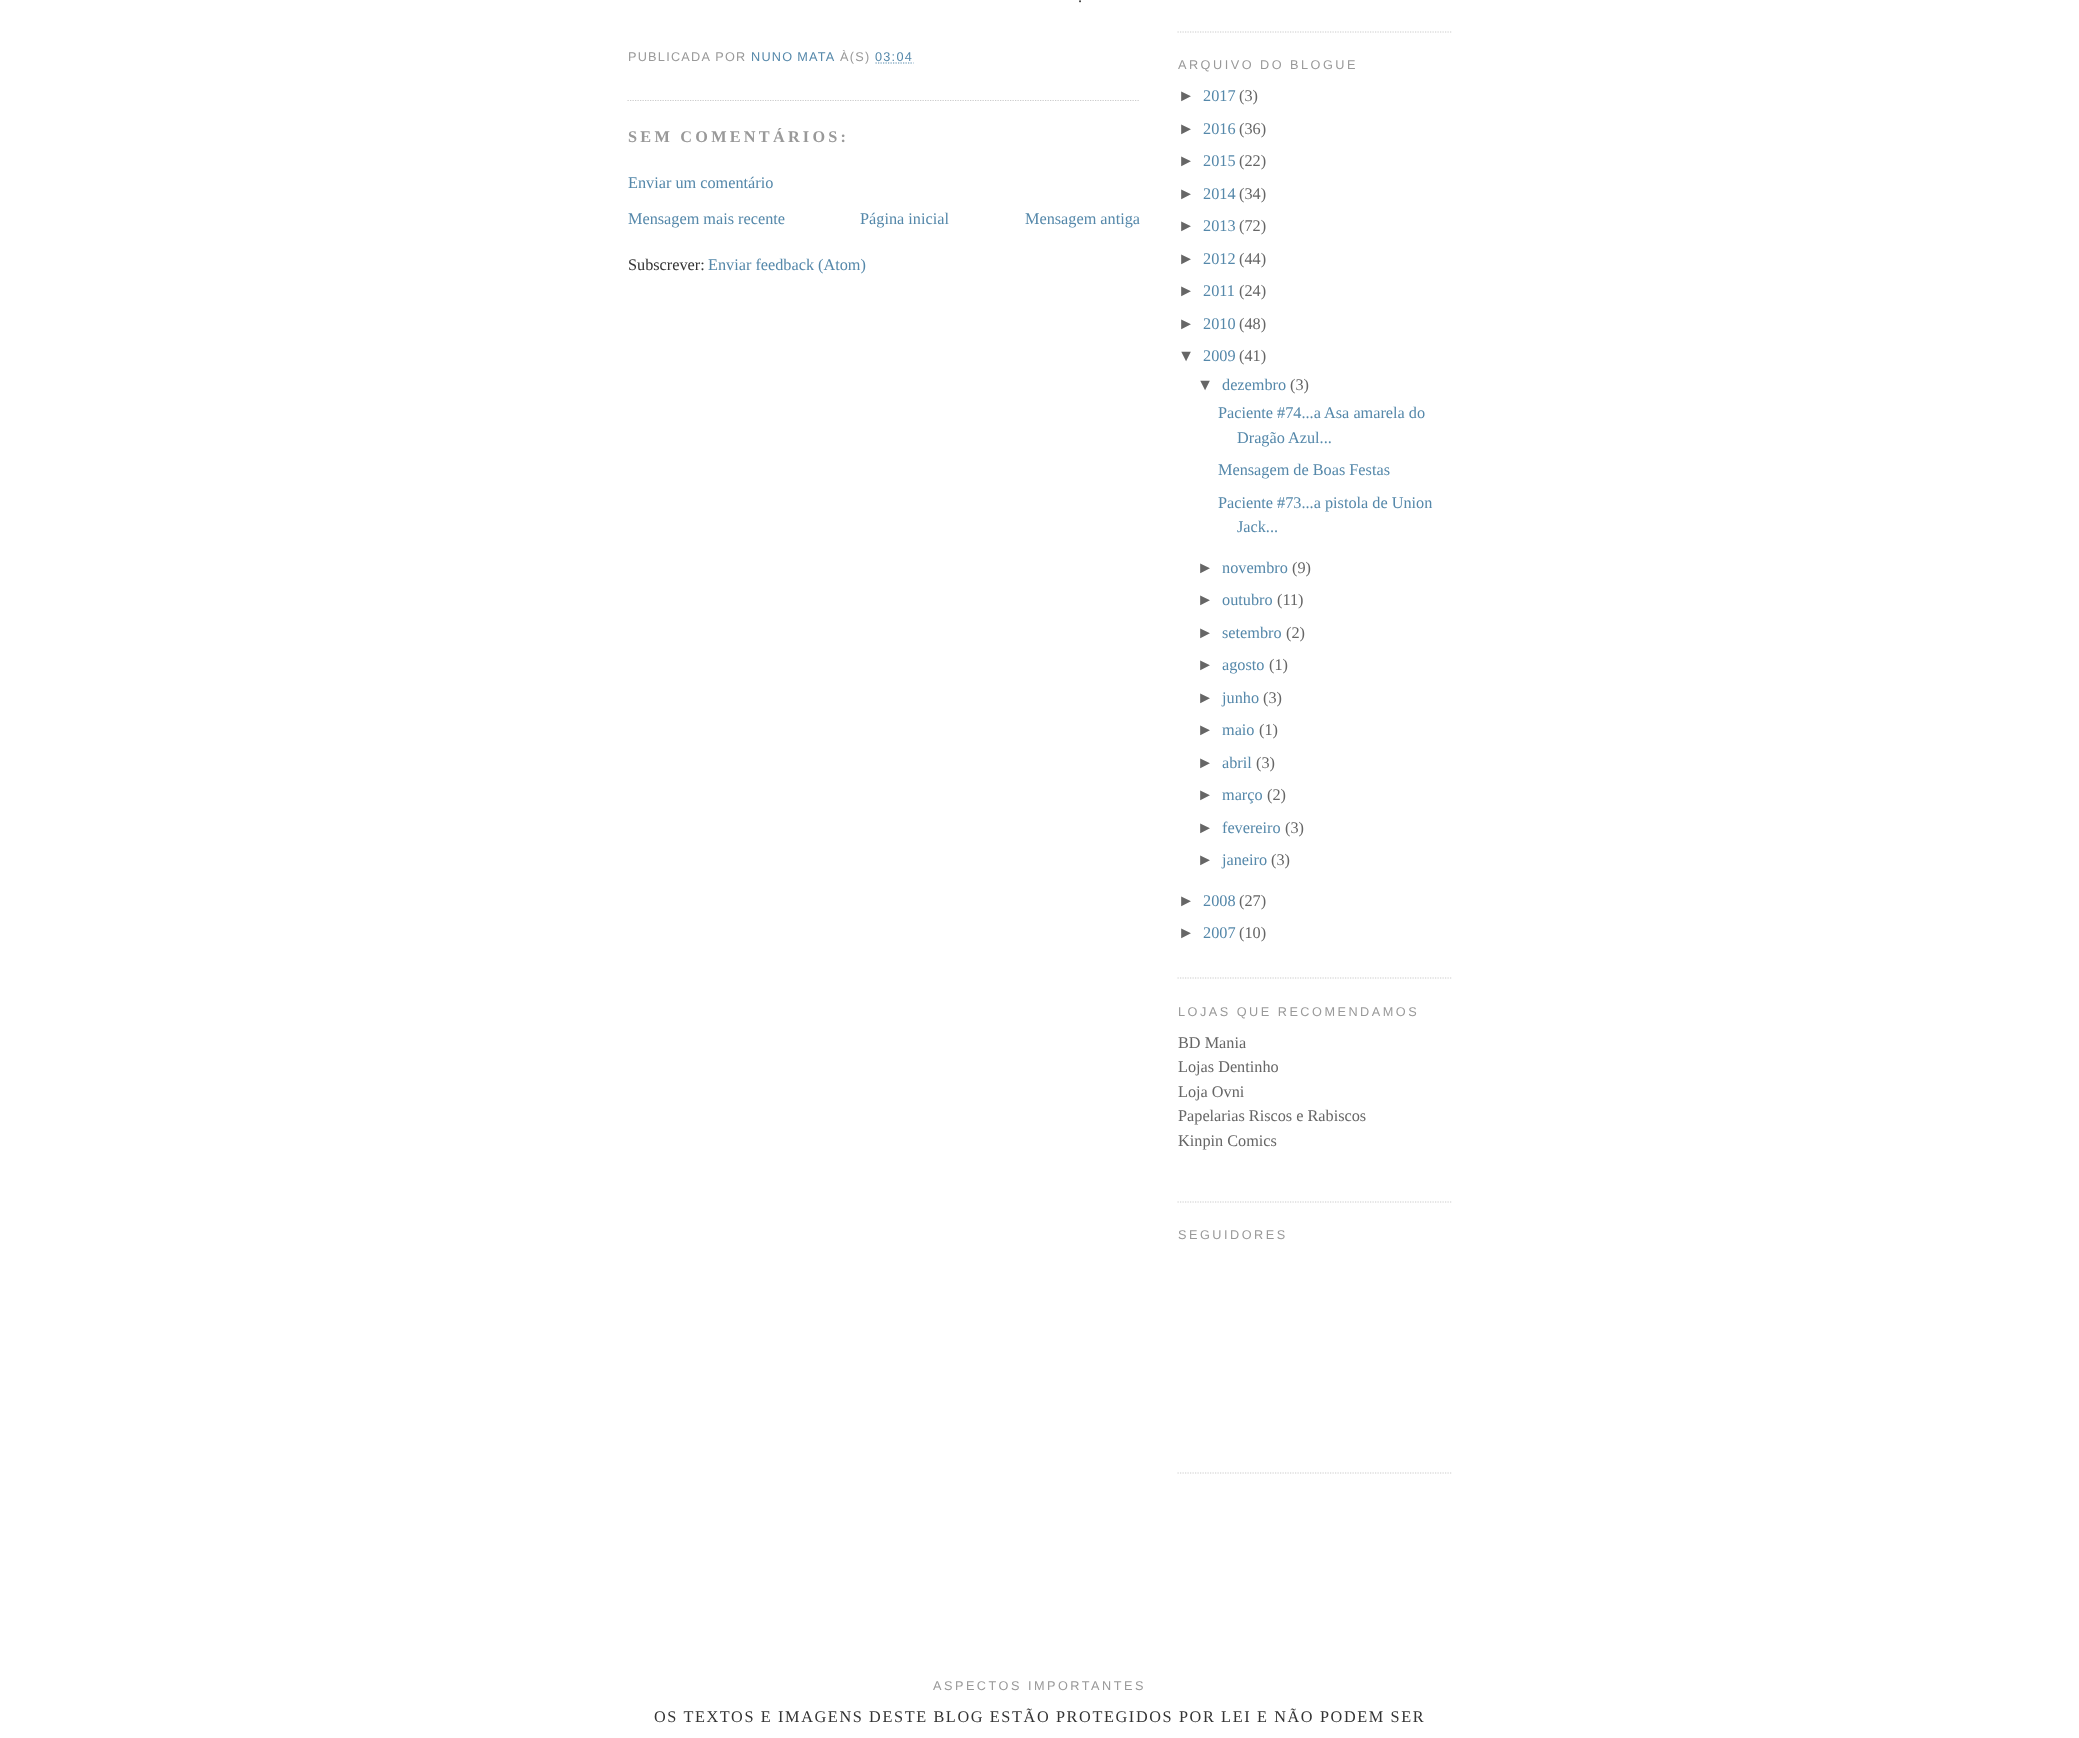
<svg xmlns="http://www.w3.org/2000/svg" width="2079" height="1738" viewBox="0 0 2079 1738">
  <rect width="100%" height="100%" fill="rgb(255,255,255)"/>
  <path d="M627.5 100.5H1140" fill="none" stroke="rgb(204,204,204)" stroke-width="1.2" stroke-dasharray="1.25 1.25"/>
  <text x="1078" y="2" font-family="Liberation Serif" font-size="16.25" fill="rgb(51,51,51)">.</text>
  <text x="628" y="61" font-family="Liberation Sans" font-size="12.7" letter-spacing="1.25" fill="rgb(153,153,153)">PUBLICADA POR</text>
  <text x="751" y="61" word-spacing="-1" font-family="Liberation Sans" font-size="12.7" letter-spacing="1.25" fill="rgb(85,136,170)">NUNO MATA</text>
  <text x="840" y="61" font-family="Liberation Sans" font-size="12.7" letter-spacing="1.25" fill="rgb(153,153,153)">À(S)</text>
  <text x="875" y="61" font-family="Liberation Sans" font-size="12.7" letter-spacing="1.25" fill="rgb(85,136,170)">03:04</text>
  <path d="M875.5 63H913.5" fill="none" stroke="rgb(85,136,170)" stroke-width="1.2" stroke-dasharray="1.25 1.25"/>
  <text x="628" y="142" font-family="Liberation Serif" font-size="16.25" font-weight="bold" letter-spacing="3.25" fill="rgb(153,153,153)">SEM COMENTÁRIOS:</text>
  <g font-family="Liberation Serif" font-size="16.25" fill="rgb(85,136,170)">
    <text x="628" y="188">Enviar um comentário</text>
    <text x="628" y="224">Mensagem mais recente</text>
    <text x="860" y="224">Página inicial</text>
    <text x="1025" y="224">Mensagem antiga</text>
  </g>
  <text x="628" y="270" font-family="Liberation Serif" font-size="16.25" fill="rgb(51,51,51)">Subscrever:</text>
  <text x="708" y="270" font-family="Liberation Serif" font-size="16.25" fill="rgb(85,136,170)">Enviar feedback (Atom)</text>
  <path d="M1177.5 32H1452.5" fill="none" stroke="rgb(204,204,204)" stroke-width="1.2" stroke-dasharray="1.25 1.25"/>
  <path d="M1177.5 978H1452.5" fill="none" stroke="rgb(204,204,204)" stroke-width="1.2" stroke-dasharray="1.25 1.25"/>
  <text x="1178" y="69" font-family="Liberation Sans" font-size="12.7" letter-spacing="2.5" fill="rgb(153,153,153)">ARQUIVO DO BLOGUE</text>
  <text x="1178" y="101" font-family="Liberation Sans" font-size="16.25" fill="rgb(102,102,102)">►</text>
  <text x="1203" y="101" font-family="Liberation Serif" font-size="16.25" fill="rgb(85,136,170)">2017</text>
  <text x="1239" y="101" font-family="Liberation Serif" font-size="16.25" fill="rgb(102,102,102)">(3)</text>
  <text x="1178" y="134" font-family="Liberation Sans" font-size="16.25" fill="rgb(102,102,102)">►</text>
  <text x="1203" y="134" font-family="Liberation Serif" font-size="16.25" fill="rgb(85,136,170)">2016</text>
  <text x="1239" y="134" font-family="Liberation Serif" font-size="16.25" fill="rgb(102,102,102)">(36)</text>
  <text x="1178" y="166" font-family="Liberation Sans" font-size="16.25" fill="rgb(102,102,102)">►</text>
  <text x="1203" y="166" font-family="Liberation Serif" font-size="16.25" fill="rgb(85,136,170)">2015</text>
  <text x="1239" y="166" font-family="Liberation Serif" font-size="16.25" fill="rgb(102,102,102)">(22)</text>
  <text x="1178" y="199" font-family="Liberation Sans" font-size="16.25" fill="rgb(102,102,102)">►</text>
  <text x="1203" y="199" font-family="Liberation Serif" font-size="16.25" fill="rgb(85,136,170)">2014</text>
  <text x="1239" y="199" font-family="Liberation Serif" font-size="16.25" fill="rgb(102,102,102)">(34)</text>
  <text x="1178" y="231" font-family="Liberation Sans" font-size="16.25" fill="rgb(102,102,102)">►</text>
  <text x="1203" y="231" font-family="Liberation Serif" font-size="16.25" fill="rgb(85,136,170)">2013</text>
  <text x="1239" y="231" font-family="Liberation Serif" font-size="16.25" fill="rgb(102,102,102)">(72)</text>
  <text x="1178" y="264" font-family="Liberation Sans" font-size="16.25" fill="rgb(102,102,102)">►</text>
  <text x="1203" y="264" font-family="Liberation Serif" font-size="16.25" fill="rgb(85,136,170)">2012</text>
  <text x="1239" y="264" font-family="Liberation Serif" font-size="16.25" fill="rgb(102,102,102)">(44)</text>
  <text x="1178" y="296" font-family="Liberation Sans" font-size="16.25" fill="rgb(102,102,102)">►</text>
  <text x="1203" y="296" font-family="Liberation Serif" font-size="16.25" fill="rgb(85,136,170)">2011</text>
  <text x="1239" y="296" font-family="Liberation Serif" font-size="16.25" fill="rgb(102,102,102)">(24)</text>
  <text x="1178" y="329" font-family="Liberation Sans" font-size="16.25" fill="rgb(102,102,102)">►</text>
  <text x="1203" y="329" font-family="Liberation Serif" font-size="16.25" fill="rgb(85,136,170)">2010</text>
  <text x="1239" y="329" font-family="Liberation Serif" font-size="16.25" fill="rgb(102,102,102)">(48)</text>
  <text x="1178" y="361" font-family="Liberation Sans" font-size="16.25" fill="rgb(102,102,102)">▼</text>
  <text x="1203" y="361" font-family="Liberation Serif" font-size="16.25" fill="rgb(85,136,170)">2009</text>
  <text x="1239" y="361" font-family="Liberation Serif" font-size="16.25" fill="rgb(102,102,102)">(41)</text>
  <text x="1197" y="390" font-family="Liberation Sans" font-size="16.25" fill="rgb(102,102,102)">▼</text>
  <text x="1222" y="390" font-family="Liberation Serif" font-size="16.25" fill="rgb(85,136,170)">dezembro</text>
  <text x="1290" y="390" font-family="Liberation Serif" font-size="16.25" fill="rgb(102,102,102)">(3)</text>
  <g font-family="Liberation Serif" font-size="16.25" fill="rgb(85,136,170)">
    <text x="1218" y="418">Paciente #74...a Asa amarela do</text>
    <text x="1237" y="443">Dragão Azul...</text>
    <text x="1218" y="475">Mensagem de Boas Festas</text>
    <text x="1218" y="508">Paciente #73...a pistola de Union</text>
    <text x="1237" y="532">Jack...</text>
  </g>
  <text x="1197" y="573" font-family="Liberation Sans" font-size="16.25" fill="rgb(102,102,102)">►</text>
  <text x="1222" y="573" font-family="Liberation Serif" font-size="16.25" fill="rgb(85,136,170)">novembro</text>
  <text x="1292" y="573" font-family="Liberation Serif" font-size="16.25" fill="rgb(102,102,102)">(9)</text>
  <text x="1197" y="605" font-family="Liberation Sans" font-size="16.25" fill="rgb(102,102,102)">►</text>
  <text x="1222" y="605" font-family="Liberation Serif" font-size="16.25" fill="rgb(85,136,170)">outubro</text>
  <text x="1277" y="605" font-family="Liberation Serif" font-size="16.25" fill="rgb(102,102,102)">(11)</text>
  <text x="1197" y="638" font-family="Liberation Sans" font-size="16.25" fill="rgb(102,102,102)">►</text>
  <text x="1222" y="638" font-family="Liberation Serif" font-size="16.25" fill="rgb(85,136,170)">setembro</text>
  <text x="1286" y="638" font-family="Liberation Serif" font-size="16.25" fill="rgb(102,102,102)">(2)</text>
  <text x="1197" y="670" font-family="Liberation Sans" font-size="16.25" fill="rgb(102,102,102)">►</text>
  <text x="1222" y="670" font-family="Liberation Serif" font-size="16.25" fill="rgb(85,136,170)">agosto</text>
  <text x="1269" y="670" font-family="Liberation Serif" font-size="16.25" fill="rgb(102,102,102)">(1)</text>
  <text x="1197" y="703" font-family="Liberation Sans" font-size="16.25" fill="rgb(102,102,102)">►</text>
  <text x="1222" y="703" font-family="Liberation Serif" font-size="16.25" fill="rgb(85,136,170)">junho</text>
  <text x="1263" y="703" font-family="Liberation Serif" font-size="16.25" fill="rgb(102,102,102)">(3)</text>
  <text x="1197" y="735" font-family="Liberation Sans" font-size="16.25" fill="rgb(102,102,102)">►</text>
  <text x="1222" y="735" font-family="Liberation Serif" font-size="16.25" fill="rgb(85,136,170)">maio</text>
  <text x="1259" y="735" font-family="Liberation Serif" font-size="16.25" fill="rgb(102,102,102)">(1)</text>
  <text x="1197" y="768" font-family="Liberation Sans" font-size="16.25" fill="rgb(102,102,102)">►</text>
  <text x="1222" y="768" font-family="Liberation Serif" font-size="16.25" fill="rgb(85,136,170)">abril</text>
  <text x="1256" y="768" font-family="Liberation Serif" font-size="16.25" fill="rgb(102,102,102)">(3)</text>
  <text x="1197" y="800" font-family="Liberation Sans" font-size="16.25" fill="rgb(102,102,102)">►</text>
  <text x="1222" y="800" font-family="Liberation Serif" font-size="16.25" fill="rgb(85,136,170)">março</text>
  <text x="1267" y="800" font-family="Liberation Serif" font-size="16.25" fill="rgb(102,102,102)">(2)</text>
  <text x="1197" y="833" font-family="Liberation Sans" font-size="16.25" fill="rgb(102,102,102)">►</text>
  <text x="1222" y="833" font-family="Liberation Serif" font-size="16.25" fill="rgb(85,136,170)">fevereiro</text>
  <text x="1285" y="833" font-family="Liberation Serif" font-size="16.25" fill="rgb(102,102,102)">(3)</text>
  <text x="1197" y="865" font-family="Liberation Sans" font-size="16.25" fill="rgb(102,102,102)">►</text>
  <text x="1222" y="865" font-family="Liberation Serif" font-size="16.25" fill="rgb(85,136,170)">janeiro</text>
  <text x="1271" y="865" font-family="Liberation Serif" font-size="16.25" fill="rgb(102,102,102)">(3)</text>
  <text x="1178" y="906" font-family="Liberation Sans" font-size="16.25" fill="rgb(102,102,102)">►</text>
  <text x="1203" y="906" font-family="Liberation Serif" font-size="16.25" fill="rgb(85,136,170)">2008</text>
  <text x="1239" y="906" font-family="Liberation Serif" font-size="16.25" fill="rgb(102,102,102)">(27)</text>
  <text x="1178" y="938" font-family="Liberation Sans" font-size="16.25" fill="rgb(102,102,102)">►</text>
  <text x="1203" y="938" font-family="Liberation Serif" font-size="16.25" fill="rgb(85,136,170)">2007</text>
  <text x="1239" y="938" font-family="Liberation Serif" font-size="16.25" fill="rgb(102,102,102)">(10)</text>
  <path d="M1177.5 1202H1452.5" fill="none" stroke="rgb(204,204,204)" stroke-width="1.2" stroke-dasharray="1.25 1.25"/>
  <text x="1178" y="1016" font-family="Liberation Sans" font-size="12.7" letter-spacing="2.5" fill="rgb(153,153,153)">LOJAS QUE RECOMENDAMOS</text>
  <g font-family="Liberation Serif" font-size="16.25" fill="rgb(102,102,102)">
    <text>
      <tspan x="1178" y="1048">BD Mania</tspan>
      <tspan x="1178" y="1072">Lojas Dentinho</tspan>
      <tspan x="1178" y="1097">Loja Ovni</tspan>
      <tspan x="1178" y="1121">Papelarias Riscos e Rabiscos</tspan>
      <tspan x="1178" y="1146">Kinpin Comics</tspan>
    </text>
  </g>
  <path d="M1177.5 1473H1452.5" fill="none" stroke="rgb(204,204,204)" stroke-width="1.2" stroke-dasharray="1.25 1.25"/>
  <g font-family="Liberation Sans" font-size="12.7" letter-spacing="2.5" fill="rgb(153,153,153)">
    <text x="1178" y="1239">SEGUIDORES</text>
    <text x="933" y="1690">ASPECTOS IMPORTANTES</text>
  </g>
  <text x="654" y="1722" font-family="Liberation Serif" font-size="16.25" letter-spacing="1.62" fill="rgb(51,51,51)">OS TEXTOS E IMAGENS DESTE BLOG ESTÃO PROTEGIDOS POR LEI E NÃO PODEM SER</text>
</svg>
